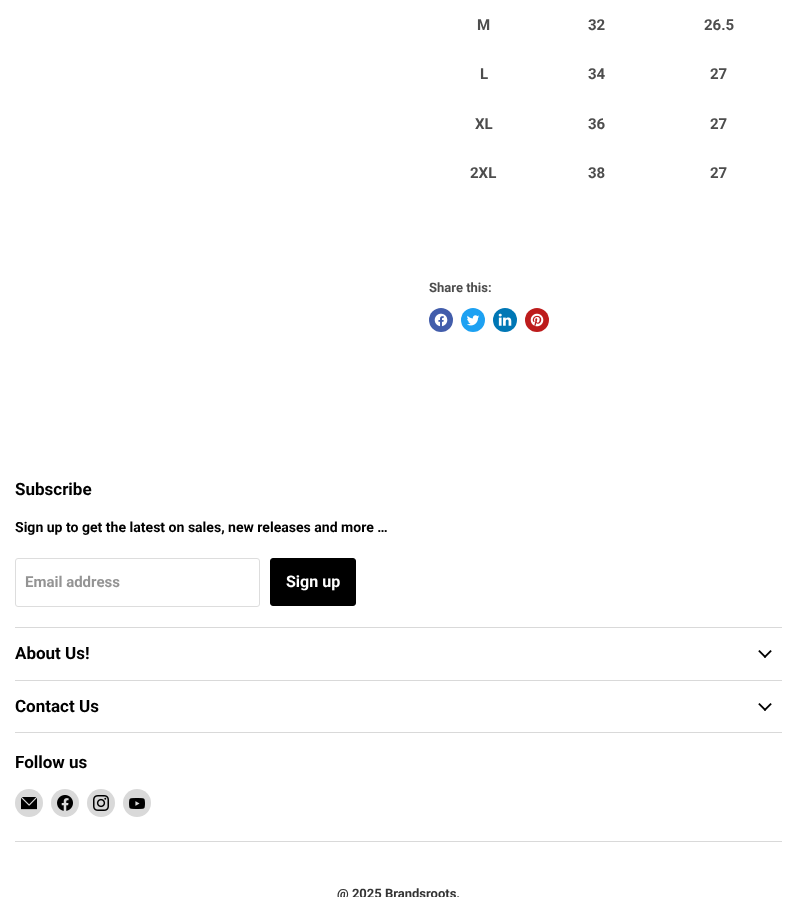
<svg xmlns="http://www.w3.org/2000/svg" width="797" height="897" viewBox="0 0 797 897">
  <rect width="100%" height="100%" fill="rgb(255,255,255)"/>
  <g font-family="Roboto" font-size="15" font-weight="bold" fill="rgb(77,77,77)">
    <text x="477" y="30">M</text>
    <text x="588" y="30">32</text>
    <text x="704" y="30">26.5</text>
    <text x="480" y="79">L</text>
    <text x="588" y="79">34</text>
    <text x="710" y="79">27</text>
    <text x="475" y="129">XL</text>
    <text x="588" y="129">36</text>
    <text x="710" y="129">27</text>
    <text x="470" y="178">2XL</text>
    <text x="588" y="178">38</text>
    <text x="710" y="178">27</text>
  </g>
  <text x="429" y="292" font-family="Roboto" font-size="13" font-weight="bold" fill="rgb(77,77,77)">Share this:</text>
  <circle cx="441" cy="320" r="12" fill="rgb(66,93,171)"/>
  <image x="434" y="313" width="14" height="14" href="pic1.png"/>
  <circle cx="473" cy="320" r="12" fill="rgb(29,161,242)"/>
  <image x="467" y="315" width="13" height="11" href="pic2.png"/>
  <circle cx="505" cy="320" r="12" fill="rgb(0,119,181)"/>
  <image x="498" y="313" width="14" height="13" href="pic3.png"/>
  <circle cx="537" cy="320" r="12" fill="rgb(189,28,28)"/>
  <image x="530" y="313" width="14" height="14" href="pic4.png"/>
  <rect x="15" y="627" width="767" height="1" fill="rgb(217,217,217)"/>
  <text x="15" y="495" font-family="Roboto" font-size="17" font-weight="bold" fill="rgb(0,0,0)">Subscribe</text>
  <text x="15" y="532" font-family="Roboto" font-size="14.05" font-weight="bold" fill="rgb(0,0,0)">Sign up to get the latest on sales, new releases and more …</text>
  <rect x="15.5" y="558.5" width="244" height="48" rx="2.5" fill="none" stroke="rgb(221,221,221)"/>
  <text x="25" y="587" font-family="Roboto" font-size="15" font-weight="bold" fill="rgb(148,148,148)">Email address</text>
  <rect x="270.5" y="558.5" width="85" height="47" rx="2.5" fill="rgb(0,0,0)" stroke="rgb(0,0,0)"/>
  <text x="286" y="587" font-family="Roboto" font-size="16" font-weight="bold" fill="rgb(255,255,255)">Sign up</text>
  <rect x="15" y="680" width="767" height="1" fill="rgb(217,217,217)"/>
  <text x="15" y="659" font-family="Roboto" font-size="17" font-weight="bold" fill="rgb(0,0,0)">About Us!</text>
  <image x="758" y="650" width="14" height="8" href="pic5.png"/>
  <rect x="15" y="732" width="767" height="1" fill="rgb(217,217,217)"/>
  <text x="15" y="712" font-family="Roboto" font-size="17" font-weight="bold" fill="rgb(0,0,0)">Contact Us</text>
  <image x="758" y="703" width="14" height="8" href="pic5.png"/>
  <rect x="15" y="841" width="767" height="1" fill="rgb(217,217,217)"/>
  <text x="15" y="768" font-family="Roboto" font-size="17" font-weight="bold" fill="rgb(0,0,0)">Follow us</text>
  <circle cx="29" cy="803" r="14" fill="rgb(217,217,217)"/>
  <image x="21" y="797" width="16" height="13" href="pic6.png"/>
  <circle cx="65" cy="803" r="14" fill="rgb(217,217,217)"/>
  <image x="57" y="795" width="16" height="16" href="pic7.png"/>
  <circle cx="101" cy="803" r="14" fill="rgb(217,217,217)"/>
  <image x="93" y="795" width="16" height="16" href="pic8.png"/>
  <circle cx="137" cy="803" r="14" fill="rgb(217,217,217)"/>
  <image x="129" y="798" width="16" height="11" href="pic9.png"/>
  <text x="337" y="898" font-family="Roboto" font-size="13" font-weight="bold" fill="rgb(51,51,51)">@ 2025 Brandsroots.</text>
</svg>
